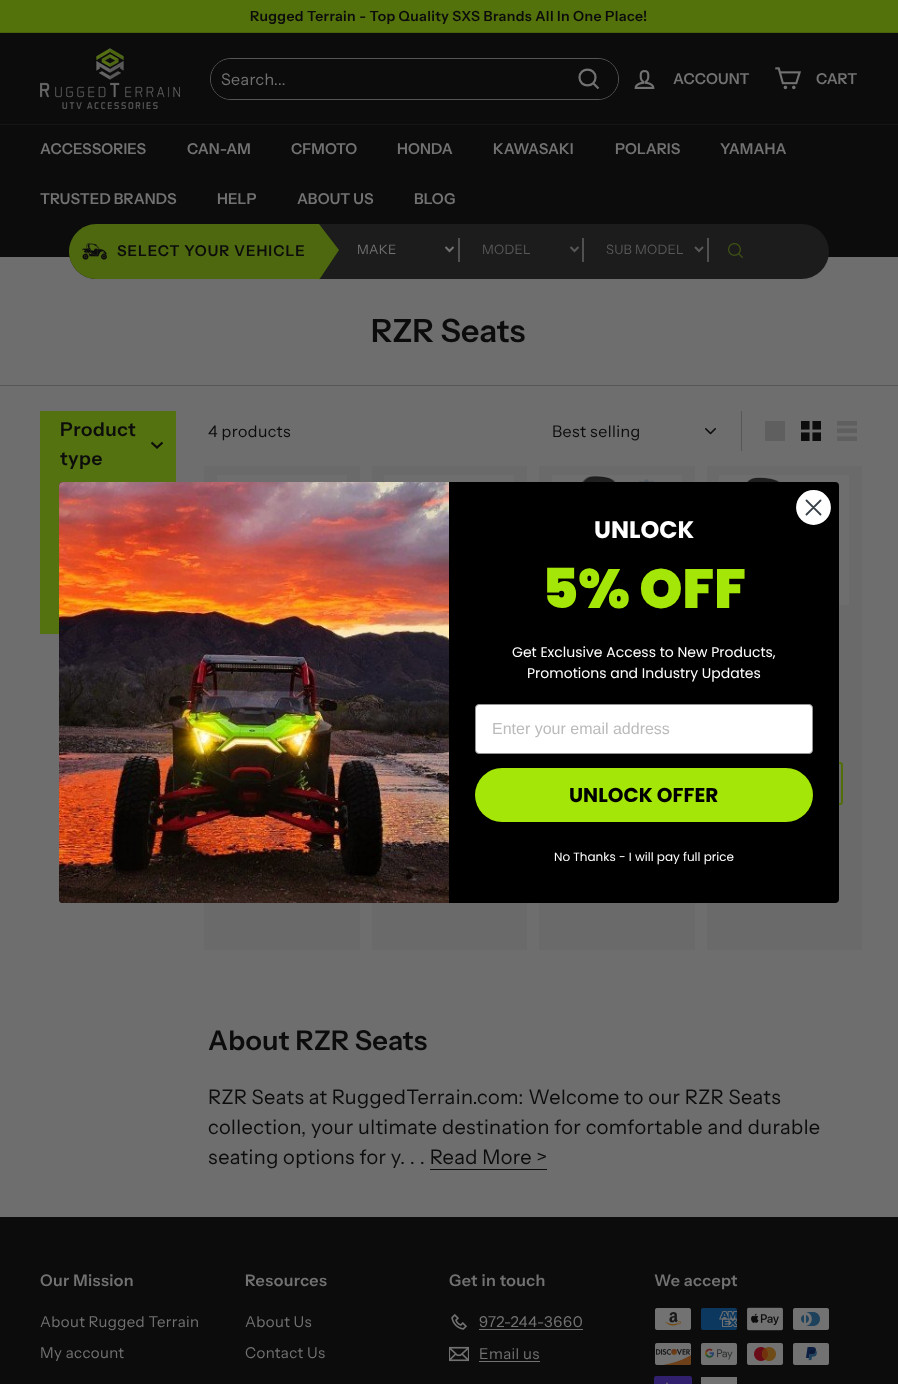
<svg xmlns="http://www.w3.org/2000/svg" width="898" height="1384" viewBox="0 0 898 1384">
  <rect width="100%" height="100%" fill="rgb(110,110,110)"/>
  <rect x="0" y="0" width="898" height="32" fill="rgb(84,114,12)"/>
  <text x="250" y="21" font-family="Instrument Sans" font-size="14" font-weight="600" letter-spacing="0.4" fill="rgb(12,12,12)">Rugged Terrain - Top Quality SXS Brands All In One Place!</text>
  <rect x="0" y="32" width="898" height="1" fill="rgb(74,98,12)"/>
  <rect x="0" y="33" width="898" height="224" fill="rgb(12,12,12)"/>
  <image x="40" y="48" width="140" height="61" href="pic1.png"/>
  <rect x="210.5" y="58.5" width="408" height="41" rx="20.5" fill="none" stroke="rgb(86,86,86)"/>
  <rect x="211" y="59" width="407" height="40" rx="20" fill="rgb(12,12,12)"/>
  <text x="221" y="85" font-family="Instrument Sans" font-size="16" letter-spacing="0.4" fill="rgb(114,114,114)">Search...</text>
  <path d="M595.5 77.5C595.5 88 579.5 88 579.5 77.5C579.5 67 595.5 67 595.5 77.5ZM598.5 88.5L593.5 83.5" fill="none" stroke="rgb(114,114,114)" stroke-width="2.2"/>
  <image x="634" y="70" width="21" height="19" href="pic2.png"/>
  <text x="673" y="84" font-family="Instrument Sans" font-size="15" font-weight="600" letter-spacing="0.1" fill="rgb(114,114,114)">ACCOUNT</text>
  <image x="775" y="67" width="26" height="23" href="pic3.png"/>
  <text x="816" y="84" font-family="Instrument Sans" font-size="15" font-weight="600" letter-spacing="0.1" fill="rgb(114,114,114)">CART</text>
  <rect x="0" y="124" width="898" height="1" fill="rgb(22,22,22)"/>
  <g font-family="Instrument Sans" font-size="15" font-weight="600" letter-spacing="0.1" fill="rgb(114,114,114)">
    <text x="40" y="154">ACCESSORIES</text>
    <text x="187" y="154">CAN-AM</text>
    <text x="291" y="154">CFMOTO</text>
    <text x="397" y="154">HONDA</text>
    <text x="493" y="154">KAWASAKI</text>
    <text x="615" y="154">POLARIS</text>
    <text x="720" y="154">YAMAHA</text>
    <text x="40" y="204">TRUSTED BRANDS</text>
    <text x="217" y="204">HELP</text>
    <text x="297" y="204">ABOUT US</text>
    <text x="414" y="204">BLOG</text>
  </g>
  <rect x="69" y="224" width="760" height="55" rx="27.5" fill="rgb(28,28,28)"/>
  <path d="M96.5 224H319V279H96.5C81.5 279 69 266.5 69 251.5C69 236.5 81.5 224 96.5 224Z" fill="rgb(78,104,15)"/>
  <image x="82" y="243" width="25" height="17" href="pic4.png"/>
  <text x="117" y="256" font-family="Instrument Sans" font-size="15" font-weight="600" letter-spacing="1" fill="rgb(12,12,12)">SELECT YOUR VEHICLE</text>
  <path d="M319 280V224L339 250Z" fill="rgb(78,104,15)"/>
  <path d="M445.5 247L449.5 251L453.5 247" fill="none" stroke="rgb(114,114,114)" stroke-width="2"/>
  <text x="357" y="254" font-family="Instrument Sans" font-size="13" letter-spacing="0.25" fill="rgb(114,114,114)">MAKE</text>
  <rect x="458" y="238" width="2" height="24" fill="rgb(80,80,80)"/>
  <path d="M570.5 247L574.5 251L578.5 247" fill="none" stroke="rgb(88,88,88)" stroke-width="2"/>
  <text x="482" y="254" font-family="Instrument Sans" font-size="13" letter-spacing="0.25" fill="rgb(88,88,88)">MODEL</text>
  <rect x="582" y="238" width="2" height="24" fill="rgb(80,80,80)"/>
  <path d="M695 247L699 251L703 247" fill="none" stroke="rgb(88,88,88)" stroke-width="2"/>
  <text x="606" y="254" font-family="Instrument Sans" font-size="13" letter-spacing="0.25" fill="rgb(88,88,88)">SUB MODEL</text>
  <rect x="707" y="238" width="2" height="24" fill="rgb(80,80,80)"/>
  <image x="728" y="243" width="15" height="15" href="pic5.png"/>
  <text x="371" y="342" font-family="Instrument Sans" font-size="32" font-weight="600" letter-spacing="0.25" fill="rgb(12,12,12)">RZR Seats</text>
  <rect x="0" y="385" width="898" height="1" fill="rgb(86,86,86)"/>
  <rect x="40" y="411" width="136" height="77" fill="rgb(84,114,15)"/>
  <g font-family="Instrument Sans" font-size="19" font-weight="600" letter-spacing="0.5" fill="rgb(12,12,12)">
    <text>
      <tspan x="60" y="436">Product</tspan>
      <tspan x="60" y="465">type</tspan>
    </text>
  </g>
  <path d="M151.5 442.5L157 447.5L162.5 442.5" fill="none" stroke="rgb(12,12,12)" stroke-width="2.1"/>
  <rect x="40" y="488" width="19" height="146" fill="rgb(84,114,15)"/>
  <text x="208" y="437" font-family="Instrument Sans" font-size="16" letter-spacing="0.4" fill="rgb(12,12,12)">4 products</text>
  <rect x="741" y="411" width="1" height="40" fill="rgb(86,86,86)"/>
  <image x="705" y="428" width="11" height="7" href="pic6.png"/>
  <text x="552" y="437" font-family="Instrument Sans" font-size="16" letter-spacing="0.4" fill="rgb(12,12,12)">Best selling</text>
  <rect x="765" y="421" width="20" height="20" fill="rgb(95,95,95)"/>
  <image x="801" y="421" width="20" height="20" href="pic7.png"/>
  <image x="837" y="421" width="20" height="20" href="pic8.png"/>
  <rect x="217" y="475" width="130" height="7" fill="rgb(114,114,114)"/>
  <rect x="204" y="466" width="156" height="484" fill="rgba(12,12,12,0.03)"/>
  <rect x="384" y="475" width="130" height="7" fill="rgb(114,114,114)"/>
  <rect x="372" y="466" width="155" height="484" fill="rgba(12,12,12,0.03)"/>
  <rect x="552" y="475" width="130" height="7" fill="rgb(114,114,114)"/>
  <image x="571" y="476" width="90" height="6" href="pic9.png"/>
  <rect x="539" y="466" width="156" height="484" fill="rgba(12,12,12,0.03)"/>
  <rect x="719" y="475" width="130" height="130" fill="rgb(114,114,114)"/>
  <image x="735" y="477" width="97" height="5" href="pic10.png"/>
  <rect x="722" y="763" width="120" height="41" rx="2" fill="none" stroke="rgb(84,114,12)" stroke-width="2"/>
  <rect x="707" y="466" width="155" height="484" fill="rgba(12,12,12,0.03)"/>
  <text x="208" y="1050" font-family="Instrument Sans" font-size="27.25" font-weight="600" letter-spacing="0.25" fill="rgb(12,12,12)">About RZR Seats</text>
  <g font-family="Instrument Sans" font-size="20" letter-spacing="0.4" fill="rgb(12,12,12)">
    <text>
      <tspan x="208" y="1104">RZR Seats at RuggedTerrain.com: Welcome to our RZR Seats</tspan>
      <tspan x="208" y="1134">collection, your ultimate destination for comfortable and durable</tspan>
      <tspan x="208" y="1164">seating options for y. . . Read More &gt;</tspan>
    </text>
  </g>
  <rect x="430" y="1169" width="117" height="1" fill="rgb(12,12,12)"/>
  <rect x="0" y="1217" width="898" height="167" fill="rgb(12,12,12)"/>
  <text x="40" y="1286" font-family="Instrument Sans" font-size="16" font-weight="600" letter-spacing="0.4" fill="rgb(114,114,114)">Our Mission</text>
  <g font-family="Instrument Sans" font-size="15" letter-spacing="0.4" fill="rgb(114,114,114)">
    <text x="40" y="1327">About Rugged Terrain</text>
    <text x="40" y="1358">My account</text>
  </g>
  <text x="245" y="1286" font-family="Instrument Sans" font-size="16" font-weight="600" letter-spacing="0.4" fill="rgb(114,114,114)">Resources</text>
  <g font-family="Instrument Sans" font-size="15" letter-spacing="0.4" fill="rgb(114,114,114)">
    <text x="245" y="1327">About Us</text>
    <text x="245" y="1358">Contact Us</text>
  </g>
  <text x="449" y="1286" font-family="Instrument Sans" font-size="16" font-weight="600" letter-spacing="0.4" fill="rgb(114,114,114)">Get in touch</text>
  <image x="451" y="1314" width="16" height="16" href="pic11.png"/>
  <text x="479" y="1327" font-family="Instrument Sans" font-size="15" letter-spacing="0.4" fill="rgb(114,114,114)">972-244-3660</text>
  <rect x="479" y="1329" width="104" height="1" fill="rgb(114,114,114)"/>
  <image x="449" y="1346" width="20" height="16" href="pic12.png"/>
  <text x="479" y="1359" font-family="Instrument Sans" font-size="15" letter-spacing="0.4" fill="rgb(114,114,114)">Email us</text>
  <rect x="479" y="1361" width="61" height="1" fill="rgb(114,114,114)"/>
  <text x="654" y="1286" font-family="Instrument Sans" font-size="16" font-weight="600" letter-spacing="0.4" fill="rgb(114,114,114)">We accept</text>
  <image x="655" y="1308" width="36" height="22" href="pic13.png"/>
  <image x="701" y="1308" width="36" height="22" href="pic14.png"/>
  <image x="747" y="1307" width="36" height="24" href="pic15.png"/>
  <image x="793" y="1308" width="36" height="22" href="pic16.png"/>
  <image x="655" y="1343" width="37" height="22" href="pic17.png"/>
  <image x="701" y="1343" width="36" height="22" href="pic18.png"/>
  <image x="747" y="1343" width="36" height="22" href="pic19.png"/>
  <image x="793" y="1343" width="36" height="22" href="pic20.png"/>
  <image x="654" y="1376" width="38" height="8" href="pic21.png"/>
  <rect x="701" y="1377" width="36" height="7" fill="rgb(114,114,114)"/>
  <rect x="59" y="482" width="780" height="421" rx="4" fill="rgb(0,0,0)"/>
  <circle cx="813.5" cy="507.5" r="16.5" fill="rgb(255,255,255)" stroke="rgb(255,255,255)" stroke-width="1.8"/>
  <path d="M806.5 500.5L820.5 514.5M806.5 514.5L820.5 500.5Z" fill="none" stroke="rgb(55,63,71)" stroke-width="1.8" stroke-linecap="round" stroke-linejoin="round"/>
  <image x="59" y="482" width="390" height="421" href="pic22.png"/>
  <text x="594" y="538" font-family="Poppins" font-size="24" font-weight="bold" fill="rgb(255,255,255)">UNLOCK</text>
  <text x="542" y="608" font-family="Poppins" font-size="55" font-weight="900" fill="rgb(164,230,7)">5% OFF</text>
  <g font-family="Poppins" font-size="14" fill="rgb(255,255,255)">
    <text x="512" y="657">Get Exclusive Access to New Products,</text>
    <text x="527" y="678">Promotions and Industry Updates</text>
  </g>
  <rect x="475.5" y="704.5" width="337" height="49" rx="3.5" fill="rgb(255,255,255)" stroke="rgb(148,149,150)"/>
  <text x="492" y="734" font-family="Liberation Sans" font-size="16" fill="rgb(187,187,187)">Enter your email address</text>
  <rect x="475" y="768" width="338" height="54" rx="27" fill="rgb(164,230,7)"/>
  <text x="569" y="802" font-family="Poppins" font-size="20" font-weight="bold" fill="rgb(0,0,0)">UNLOCK OFFER</text>
  <text x="554" y="861" font-family="Poppins" font-size="12" fill="rgb(255,255,255)">No Thanks - I will pay full price</text>
</svg>
